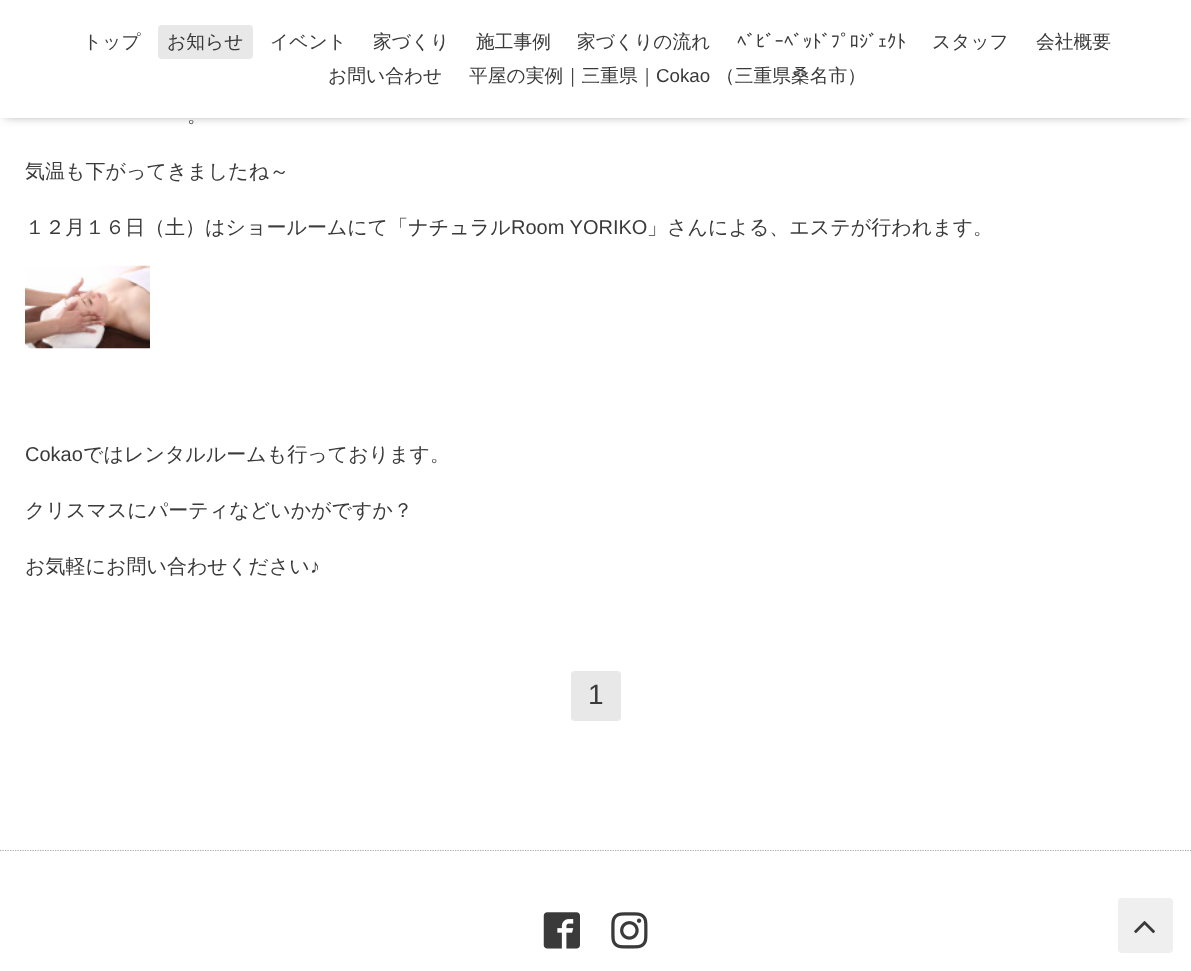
<svg xmlns="http://www.w3.org/2000/svg" width="1191" height="971" viewBox="0 0 1191 971">
  <rect width="100%" height="100%" fill="rgb(255,255,255)"/>
  <rect x="5" y="6" width="1181" height="108" fill="rgba(0,0,0,0.6)" filter="blur(6px)"/>
  <rect x="0" y="0" width="1191" height="118" fill="rgb(255,255,255)"/>
  <text x="83" y="48" font-family="WenQuanYi Zen Hei" font-size="18.75" font-weight="500" fill="rgb(58,58,58)">トップ</text>
  <rect x="158" y="25" width="95" height="34" rx="4" fill="rgb(232,232,232)"/>
  <g font-family="WenQuanYi Zen Hei" font-size="18.75" font-weight="500" fill="rgb(58,58,58)">
    <text x="167" y="48">お知らせ</text>
    <text x="270" y="48">イベント</text>
    <text x="373" y="48">家づくり</text>
    <text x="476" y="48">施工事例</text>
    <text x="577" y="48">家づくりの流れ</text>
  </g>
  <text x="737" y="48" font-family="IPAPGothic" font-size="18.75" fill="rgb(58,58,58)">ﾍﾞﾋﾞｰﾍﾞｯﾄﾞﾌﾟﾛｼﾞｪｸﾄ</text>
  <g font-family="WenQuanYi Zen Hei" font-size="18.75" font-weight="500" fill="rgb(58,58,58)">
    <text x="932" y="48">スタッフ</text>
    <text x="1036" y="48">会社概要</text>
    <text x="328" y="82">お問い合わせ</text>
    <text x="469" y="82">平屋の実例｜三重県｜</text>
  </g>
  <text x="656" y="82" font-family="Liberation Sans" font-size="18.75" fill="rgb(58,58,58)">Cokao</text>
  <text x="716" y="82" font-family="WenQuanYi Zen Hei" font-size="18.75" font-weight="500" fill="rgb(58,58,58)">（三重県桑名市）</text>
  <g font-family="WenQuanYi Zen Hei" font-size="20" font-weight="500" fill="rgb(58,58,58)">
    <text x="187" y="122">。</text>
    <text x="25" y="178">気温も下がってきましたね～</text>
    <text x="25" y="234">１２月１６日（土）はショールームにて「ナチュラル</text>
  </g>
  <text x="511" y="234" font-family="Liberation Sans" font-size="20" fill="rgb(58,58,58)">Room YORIKO</text>
  <text x="647" y="234" font-family="WenQuanYi Zen Hei" font-size="20" font-weight="500" fill="rgb(58,58,58)">」さんによる、エステが行われます。</text>
  <image x="25" y="265" width="125" height="84" href="pic1.png"/>
  <text x="25" y="461" font-family="Liberation Sans" font-size="20" fill="rgb(58,58,58)">Cokao</text>
  <g font-family="WenQuanYi Zen Hei" font-size="20" font-weight="500" fill="rgb(58,58,58)">
    <text x="83" y="461">ではレンタルルームも行っております。</text>
    <text x="25" y="517">クリスマスにパーティなどいかがですか？</text>
    <text x="25" y="573">お気軽にお問い合わせください</text>
  </g>
  <text x="310" y="573" font-family="Liberation Sans" font-size="20" fill="rgb(58,58,58)">♪</text>
  <rect x="571" y="671" width="50" height="50" rx="4" fill="rgb(232,232,232)"/>
  <text x="588" y="704" font-family="Liberation Sans" font-size="28" fill="rgb(58,58,58)">1</text>
  <path d="M0 850.5H1191" fill="none" stroke="rgb(169,169,169)" stroke-width="1.2" stroke-dasharray="1.25 1.25"/>
  <image x="543" y="912" width="37" height="37" href="pic2.png"/>
  <image x="611" y="912" width="37" height="37" href="pic3.png"/>
  <rect x="1118" y="898" width="55" height="55" rx="4" fill="rgb(239,239,239)"/>
  <image x="1134" y="921" width="21" height="13" href="pic4.png"/>
</svg>
